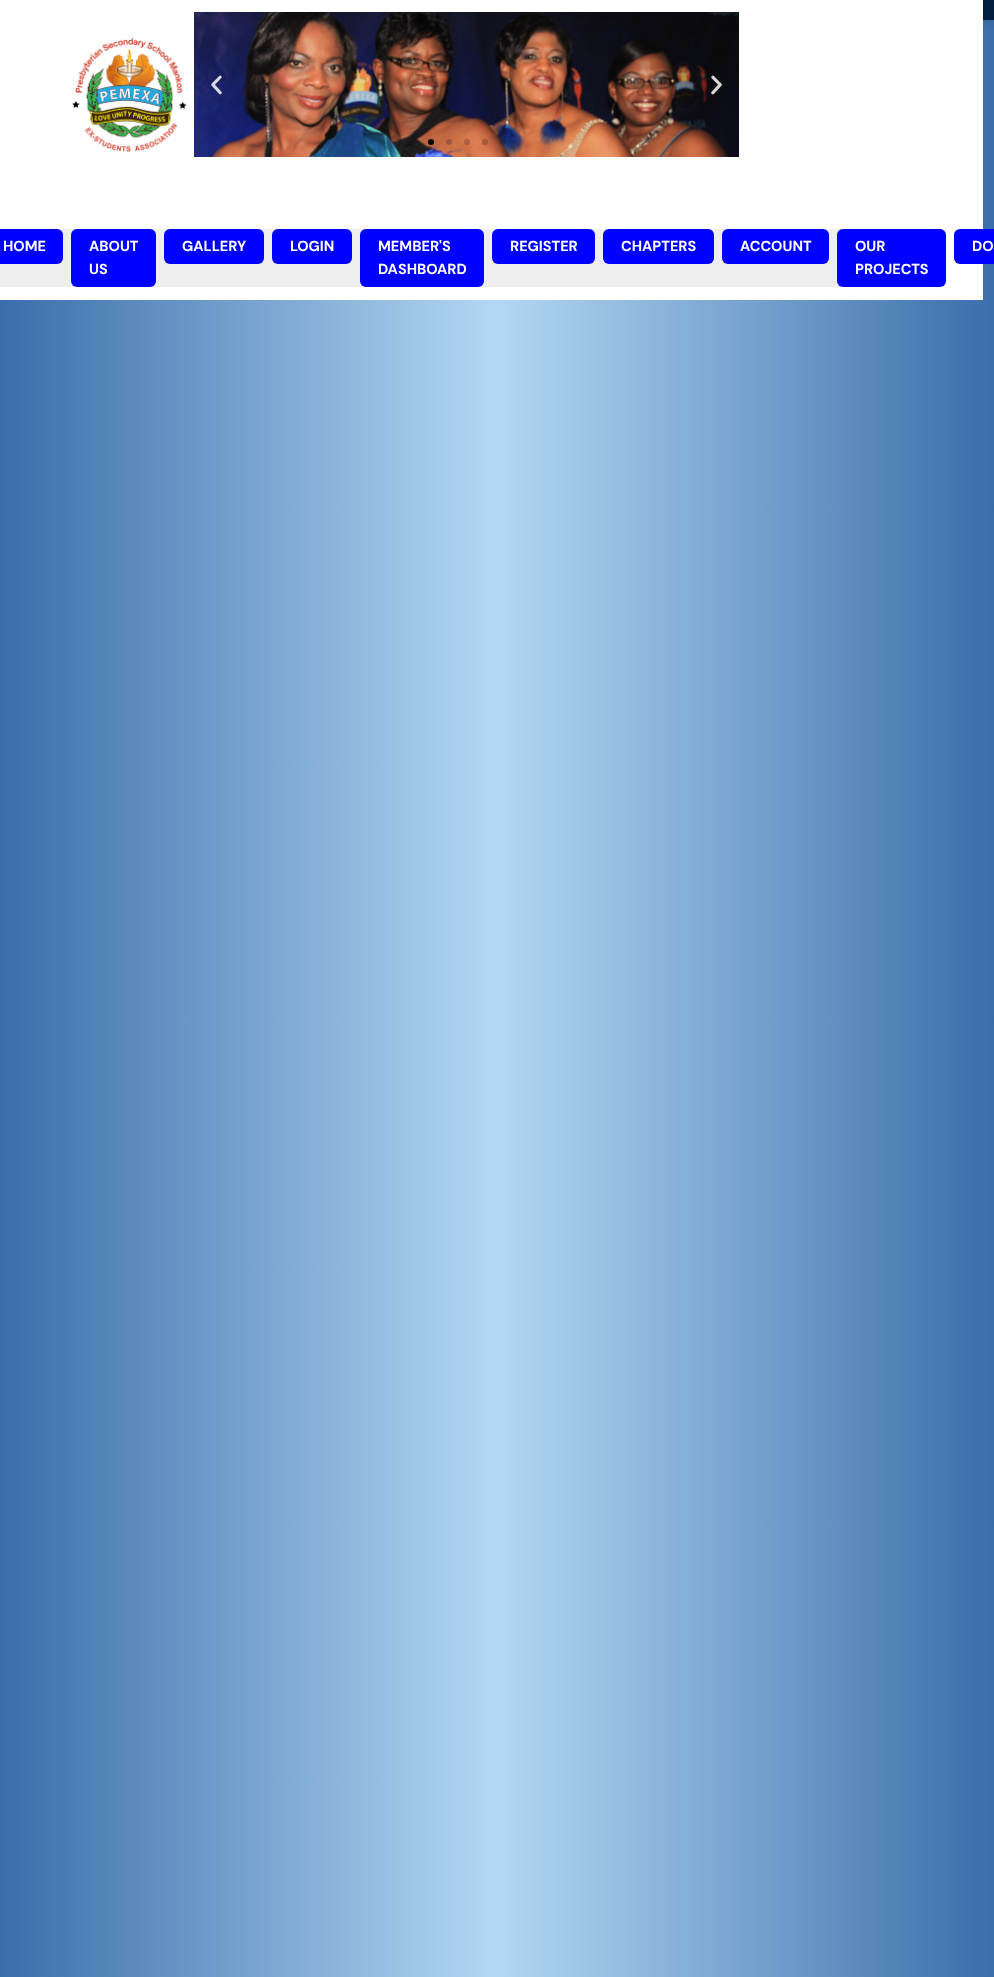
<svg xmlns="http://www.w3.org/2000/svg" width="994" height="1977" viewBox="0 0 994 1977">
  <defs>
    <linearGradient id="g1" gradientUnits="userSpaceOnUse" x1="0" y1="76" x2="994" y2="76"><stop offset="0" stop-color="rgb(58,110,170)"/><stop offset="0.5" stop-color="rgb(179,215,243)"/><stop offset="1" stop-color="rgb(58,110,170)"/></linearGradient>
  </defs>
  <rect width="100%" height="100%" fill="rgb(255,255,255)"/>
  <rect x="0" y="20" width="994" height="1957" fill="url(#g1)"/>
  <rect x="0" y="2" width="994" height="20" fill="rgba(0,0,0,0.1)" filter="blur(3px)"/>
  <rect x="983" y="0" width="11" height="20" fill="rgb(0,31,63)"/>
  <rect x="0" y="0" width="983" height="300" fill="rgb(255,255,255)"/>
  <image x="72" y="37" width="115" height="116" href="pic1.png"/>
  <image x="194" y="12" width="545" height="145" href="pic2.png"/>
  <image x="211" y="75" width="11" height="20" href="pic3.png"/>
  <image x="711" y="75" width="11" height="20" href="pic4.png"/>
  <circle cx="431" cy="142" r="3" fill="rgb(0,0,0)"/>
  <circle cx="449" cy="142" r="3" fill="rgba(0,0,0,0.2)"/>
  <circle cx="467" cy="142" r="3" fill="rgba(0,0,0,0.2)"/>
  <circle cx="485" cy="142" r="3" fill="rgba(0,0,0,0.2)"/>
  <circle cx="503" cy="142" r="3" fill="rgba(0,0,0,0.2)"/>
  <rect x="0" y="229" width="843" height="58" fill="rgb(238,238,238)"/>
  <rect x="-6" y="229" width="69" height="35" rx="6" fill="rgb(0,0,255)"/>
  <text x="3" y="251" font-family="DM Sans" font-size="14.5" font-weight="bold" fill="rgb(255,255,255)">HOME</text>
  <rect x="71" y="229" width="85" height="58" rx="6" fill="rgb(0,0,255)"/>
  <g font-family="DM Sans" font-size="14.5" font-weight="bold" fill="rgb(255,255,255)">
    <text>
      <tspan x="89" y="251">ABOUT</tspan>
      <tspan x="89" y="274">US</tspan>
    </text>
  </g>
  <rect x="164" y="229" width="100" height="35" rx="6" fill="rgb(0,0,255)"/>
  <text x="182" y="251" font-family="DM Sans" font-size="14.5" font-weight="bold" fill="rgb(255,255,255)">GALLERY</text>
  <rect x="272" y="229" width="80" height="35" rx="6" fill="rgb(0,0,255)"/>
  <text x="290" y="251" font-family="DM Sans" font-size="14.5" font-weight="bold" fill="rgb(255,255,255)">LOGIN</text>
  <rect x="360" y="229" width="124" height="58" rx="6" fill="rgb(0,0,255)"/>
  <g font-family="DM Sans" font-size="14.5" font-weight="bold" fill="rgb(255,255,255)">
    <text>
      <tspan x="378" y="251">MEMBER'S</tspan>
      <tspan x="378" y="274">DASHBOARD</tspan>
    </text>
  </g>
  <rect x="492" y="229" width="103" height="35" rx="6" fill="rgb(0,0,255)"/>
  <text x="510" y="251" font-family="DM Sans" font-size="14.5" font-weight="bold" fill="rgb(255,255,255)">REGISTER</text>
  <rect x="603" y="229" width="111" height="35" rx="6" fill="rgb(0,0,255)"/>
  <text x="621" y="251" font-family="DM Sans" font-size="14.5" font-weight="bold" fill="rgb(255,255,255)">CHAPTERS</text>
  <rect x="722" y="229" width="107" height="35" rx="6" fill="rgb(0,0,255)"/>
  <text x="740" y="251" font-family="DM Sans" font-size="14.5" font-weight="bold" fill="rgb(255,255,255)">ACCOUNT</text>
  <rect x="837" y="229" width="109" height="58" rx="6" fill="rgb(0,0,255)"/>
  <g font-family="DM Sans" font-size="14.5" font-weight="bold" fill="rgb(255,255,255)">
    <text>
      <tspan x="855" y="251">OUR</tspan>
      <tspan x="855" y="274">PROJECTS</tspan>
    </text>
  </g>
  <rect x="954" y="229" width="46" height="35" rx="6" fill="rgb(0,0,255)"/>
  <text x="972" y="251" font-family="DM Sans" font-size="14.5" font-weight="bold" fill="rgb(255,255,255)">DO</text>
</svg>
